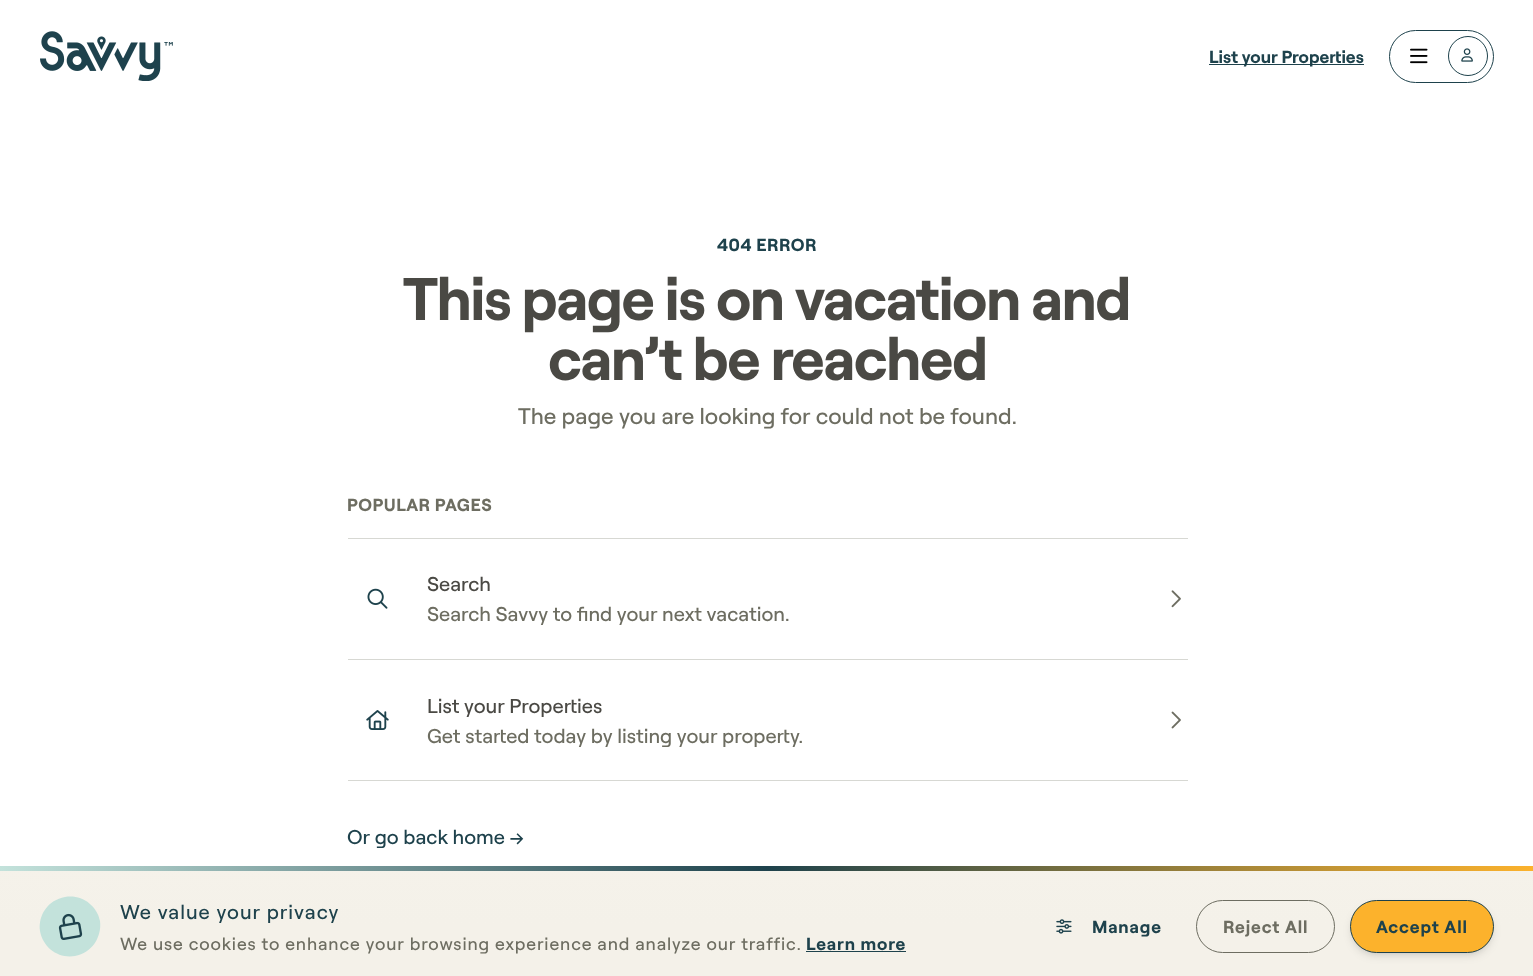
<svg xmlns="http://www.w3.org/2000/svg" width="1533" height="976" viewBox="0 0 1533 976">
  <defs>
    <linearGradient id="g1" gradientUnits="userSpaceOnUse" x1="767" y1="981" x2="767" y2="866"><stop offset="0" stop-color="rgb(244,241,233)"/><stop offset="0.5" stop-color="rgb(244,241,233)"/><stop offset="1" stop-color="rgb(245,242,234)"/></linearGradient>
    <linearGradient id="g2" gradientUnits="userSpaceOnUse" x1="0" y1="869" x2="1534" y2="869"><stop offset="0" stop-color="rgb(195,226,219)"/><stop offset="0.5" stop-color="rgb(30,66,76)"/><stop offset="1" stop-color="rgb(252,178,44)"/></linearGradient>
  </defs>
  <rect width="100%" height="100%" fill="rgb(255,255,255)"/>
  <image x="40" y="31" width="133" height="50" href="pic1.png"/>
  <rect x="1209" y="64" width="155" height="1" fill="rgb(30,66,76)"/>
  <text x="1209" y="63" font-family="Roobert" font-size="17.5" font-weight="bold" fill="rgb(30,66,76)">List your Properties</text>
  <rect x="1389.5" y="30.5" width="104" height="52" rx="26" fill="none" stroke="rgb(30,66,76)"/>
  <image x="1410" y="48" width="18" height="16" href="pic2.png"/>
  <circle cx="1468" cy="56" r="19.5" fill="none" stroke="rgb(30,66,76)"/>
  <image x="1461" y="48" width="12" height="14" href="pic3.png"/>
  <text x="717" y="251" font-family="Roobert" font-size="17.5" font-weight="bold" letter-spacing="0.5" fill="rgb(30,66,76)">404 ERROR</text>
  <g font-family="Roobert" font-size="60" font-weight="bold" letter-spacing="-1.5" fill="rgb(74,73,68)">
    <text x="403" y="320">This page is on vacation and</text>
    <text x="548" y="380">can’t be reached</text>
  </g>
  <text x="518" y="424" font-family="Roobert" font-size="22.5" font-weight="500" fill="rgb(109,109,97)">The page you are looking for could not be found.</text>
  <text x="347" y="511" font-family="Roobert" font-size="17.5" font-weight="bold" letter-spacing="0.5" fill="rgb(109,109,97)">POPULAR PAGES</text>
  <rect x="348" y="538" width="840" height="1" fill="rgb(215,216,211)"/>
  <rect x="348" y="780" width="840" height="1" fill="rgb(215,216,211)"/>
  <image x="367" y="588" width="21" height="21" href="pic4.png"/>
  <text x="427" y="591" font-family="Roobert" font-size="20" font-weight="500" fill="rgb(74,73,68)">Search</text>
  <text x="427" y="621" font-family="Roobert" font-size="20" font-weight="500" fill="rgb(109,109,97)">Search Savvy to find your next vacation.</text>
  <image x="1171" y="590" width="10" height="18" href="pic5.png"/>
  <rect x="348" y="659" width="840" height="1" fill="rgb(215,216,211)"/>
  <image x="366" y="710" width="23" height="20" href="pic6.png"/>
  <text x="427" y="713" font-family="Roobert" font-size="20" font-weight="500" fill="rgb(74,73,68)">List your Properties</text>
  <text x="427" y="743" font-family="Roobert" font-size="20" font-weight="500" fill="rgb(109,109,97)">Get started today by listing your property.</text>
  <image x="1171" y="711" width="10" height="18" href="pic7.png"/>
  <text x="347" y="844" font-family="Roobert" font-size="20" font-weight="500" fill="rgb(30,66,76)">Or go back home →</text>
  <rect x="0" y="871" width="1533" height="105" fill="url(#g1)"/>
  <rect x="0" y="866" width="1533" height="5" fill="url(#g2)"/>
  <path d="M65 897C81 894 97 905 100 921C102 937 92 953 75 956C59 959 43 948 40 931C38 915 48 900 65 897Z" fill="rgb(195,226,219)"/>
  <image x="58" y="913" width="25" height="27" href="pic8.png"/>
  <text x="120" y="919" font-family="Roobert" font-size="20" font-weight="500" letter-spacing="1" fill="rgb(30,66,76)">We value your privacy</text>
  <text x="120" y="950" font-family="Roobert" font-size="17.5" font-weight="500" letter-spacing="0.88" fill="rgb(109,109,97)">We use cookies to enhance your browsing experience and analyze our traffic.</text>
  <text x="806" y="950" font-family="Roobert" font-size="17.5" font-weight="bold" letter-spacing="0.88" fill="rgb(30,66,76)">Learn more</text>
  <rect x="806" y="951" width="100" height="1" fill="rgb(30,66,76)"/>
  <image x="1056" y="919" width="16" height="15" href="pic9.png"/>
  <text x="1092" y="933" font-family="Roobert" font-size="17.5" font-weight="bold" letter-spacing="0.88" fill="rgb(30,66,76)">Manage</text>
  <rect x="1196.5" y="900.5" width="138" height="52" rx="26" fill="none" stroke="rgb(109,109,97)"/>
  <text x="1223" y="933" font-family="Roobert" font-size="17.5" font-weight="bold" letter-spacing="0.88" fill="rgb(109,109,97)">Reject All</text>
  <rect x="1353" y="905" width="138" height="48" rx="24" fill="rgba(0,0,0,0.1)" filter="blur(2.5px)"/>
  <rect x="1351" y="906" width="142" height="50" rx="25" fill="rgba(0,0,0,0.1)" filter="blur(4px)"/>
  <rect x="1350.5" y="900.5" width="143" height="52" rx="26" fill="rgb(252,178,44)" stroke="rgb(30,66,76)"/>
  <text x="1376" y="933" font-family="Roobert" font-size="17.5" font-weight="bold" letter-spacing="0.88" fill="rgb(30,66,76)">Accept All</text>
</svg>
